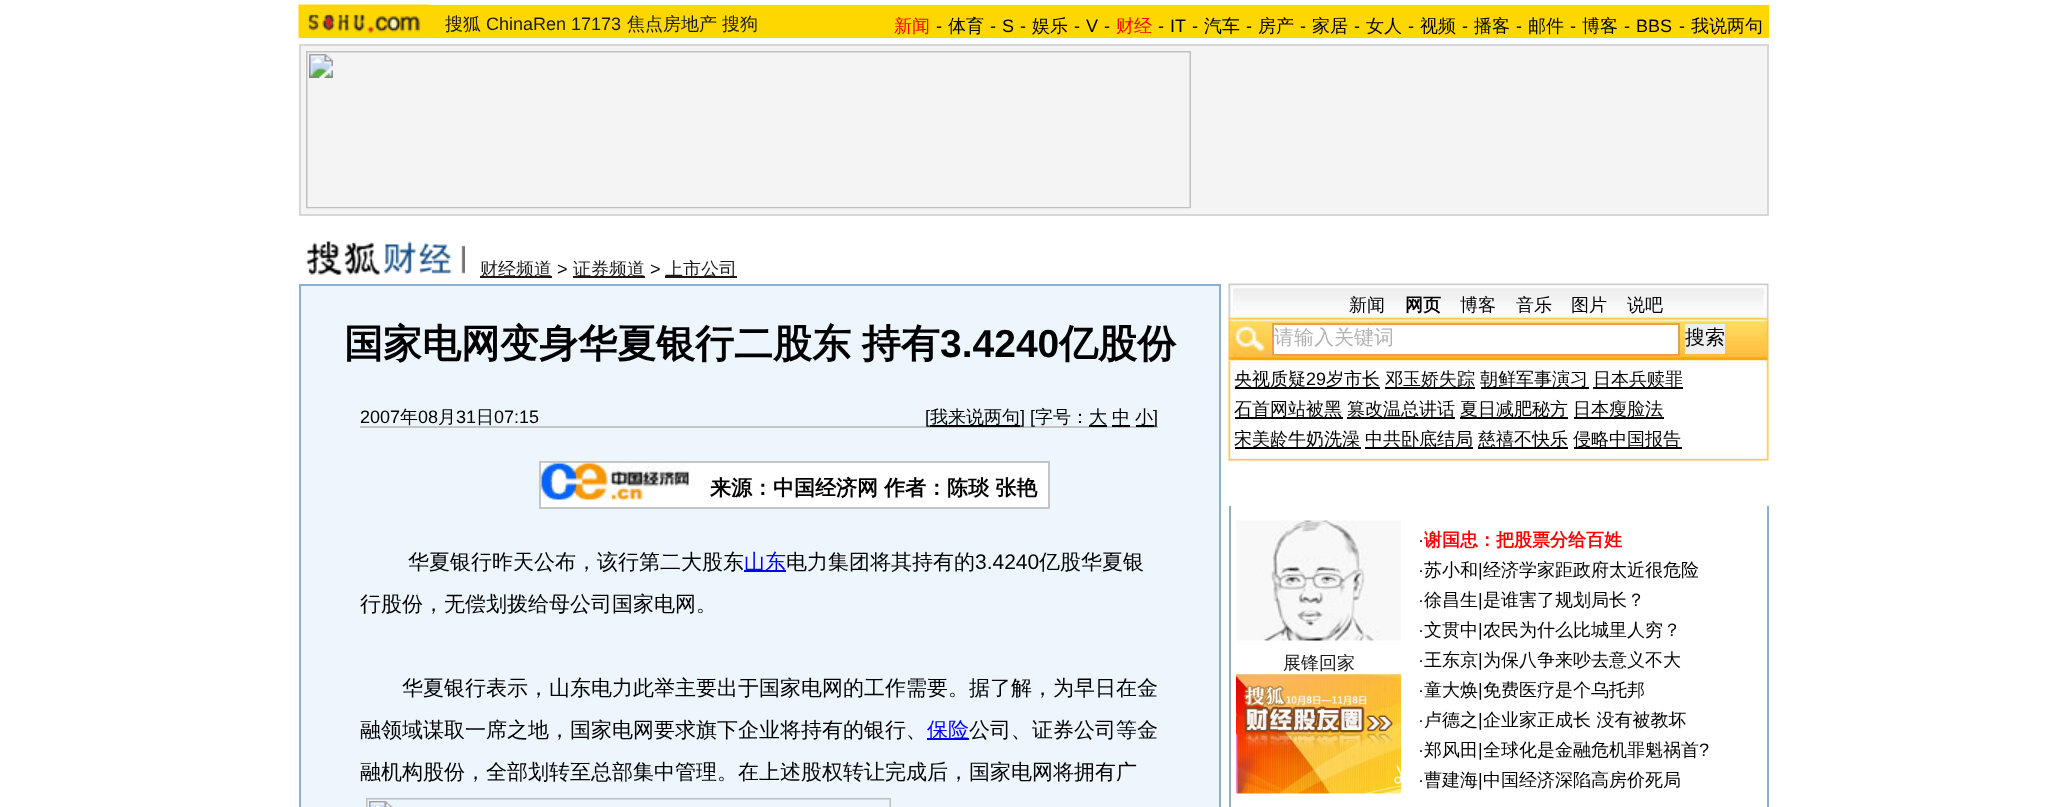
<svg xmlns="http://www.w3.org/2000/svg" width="2066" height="807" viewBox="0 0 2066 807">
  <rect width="100%" height="100%" fill="rgb(255,255,255)"/>
  <rect x="299" y="5" width="1470" height="33" fill="rgb(255,215,0)"/>
  <image x="298" y="4" width="131" height="34" href="pic1.png"/>
  <text x="445" y="30" font-family="WenQuanYi Zen Hei" font-size="18" font-weight="500" fill="rgb(25,25,25)">搜狐</text>
  <text x="486" y="30" font-family="Liberation Sans" font-size="18" fill="rgb(25,25,25)">ChinaRen 17173</text>
  <g font-family="WenQuanYi Zen Hei" font-size="18" font-weight="500" fill="rgb(25,25,25)">
    <text x="627" y="30">焦点房地产</text>
    <text x="722" y="30">搜狗</text>
  </g>
  <text x="894" y="32" font-family="WenQuanYi Zen Hei" font-size="18" font-weight="500" fill="rgb(255,0,0)">新闻</text>
  <text x="936" y="32" font-family="Liberation Sans" font-size="18" fill="rgb(0,0,0)">-</text>
  <text x="948" y="32" font-family="WenQuanYi Zen Hei" font-size="18" font-weight="500" fill="rgb(0,0,0)">体育</text>
  <g font-family="Liberation Sans" font-size="18" fill="rgb(0,0,0)">
    <text x="990" y="32">-</text>
    <text x="1002" y="32">S</text>
    <text x="1020" y="32">-</text>
  </g>
  <text x="1032" y="32" font-family="WenQuanYi Zen Hei" font-size="18" font-weight="500" fill="rgb(0,0,0)">娱乐</text>
  <g font-family="Liberation Sans" font-size="18" fill="rgb(0,0,0)">
    <text x="1074" y="32">-</text>
    <text x="1086" y="32">V</text>
    <text x="1104" y="32">-</text>
  </g>
  <text x="1116" y="32" font-family="WenQuanYi Zen Hei" font-size="18" font-weight="500" fill="rgb(255,0,0)">财经</text>
  <g font-family="Liberation Sans" font-size="18" fill="rgb(0,0,0)">
    <text x="1158" y="32">-</text>
    <text x="1170" y="32">IT</text>
    <text x="1192" y="32">-</text>
  </g>
  <text x="1204" y="32" font-family="WenQuanYi Zen Hei" font-size="18" font-weight="500" fill="rgb(0,0,0)">汽车</text>
  <text x="1246" y="32" font-family="Liberation Sans" font-size="18" fill="rgb(0,0,0)">-</text>
  <text x="1258" y="32" font-family="WenQuanYi Zen Hei" font-size="18" font-weight="500" fill="rgb(0,0,0)">房产</text>
  <text x="1300" y="32" font-family="Liberation Sans" font-size="18" fill="rgb(0,0,0)">-</text>
  <text x="1312" y="32" font-family="WenQuanYi Zen Hei" font-size="18" font-weight="500" fill="rgb(0,0,0)">家居</text>
  <text x="1354" y="32" font-family="Liberation Sans" font-size="18" fill="rgb(0,0,0)">-</text>
  <text x="1366" y="32" font-family="WenQuanYi Zen Hei" font-size="18" font-weight="500" fill="rgb(0,0,0)">女人</text>
  <text x="1408" y="32" font-family="Liberation Sans" font-size="18" fill="rgb(0,0,0)">-</text>
  <text x="1420" y="32" font-family="WenQuanYi Zen Hei" font-size="18" font-weight="500" fill="rgb(0,0,0)">视频</text>
  <text x="1462" y="32" font-family="Liberation Sans" font-size="18" fill="rgb(0,0,0)">-</text>
  <text x="1474" y="32" font-family="WenQuanYi Zen Hei" font-size="18" font-weight="500" fill="rgb(0,0,0)">播客</text>
  <text x="1516" y="32" font-family="Liberation Sans" font-size="18" fill="rgb(0,0,0)">-</text>
  <text x="1528" y="32" font-family="WenQuanYi Zen Hei" font-size="18" font-weight="500" fill="rgb(0,0,0)">邮件</text>
  <text x="1570" y="32" font-family="Liberation Sans" font-size="18" fill="rgb(0,0,0)">-</text>
  <text x="1582" y="32" font-family="WenQuanYi Zen Hei" font-size="18" font-weight="500" fill="rgb(0,0,0)">博客</text>
  <g font-family="Liberation Sans" font-size="18" fill="rgb(0,0,0)">
    <text x="1624" y="32">-</text>
    <text x="1636" y="32">BBS</text>
    <text x="1679" y="32">-</text>
  </g>
  <text x="1691" y="32" font-family="WenQuanYi Zen Hei" font-size="18" font-weight="500" fill="rgb(0,0,0)">我说两句</text>
  <rect x="300" y="45" width="1468" height="170" fill="rgb(244,244,244)" stroke="rgb(215,215,215)" stroke-width="2"/>
  <image x="306" y="51" width="885" height="158" href="pic2.png"/>
  <image x="306" y="241" width="159" height="34" href="pic3.png"/>
  <rect x="480" y="276" width="72" height="2" fill="rgb(25,25,25)"/>
  <text x="480" y="275" font-family="WenQuanYi Zen Hei" font-size="18" font-weight="500" fill="rgb(25,25,25)">财经频道</text>
  <text x="557" y="275" font-family="Liberation Sans" font-size="18" fill="rgb(0,0,0)">&gt;</text>
  <rect x="573" y="276" width="72" height="2" fill="rgb(25,25,25)"/>
  <text x="573" y="275" font-family="WenQuanYi Zen Hei" font-size="18" font-weight="500" fill="rgb(25,25,25)">证券频道</text>
  <text x="650" y="275" font-family="Liberation Sans" font-size="18" fill="rgb(0,0,0)">&gt;</text>
  <rect x="665" y="276" width="72" height="2" fill="rgb(25,25,25)"/>
  <text x="665" y="275" font-family="WenQuanYi Zen Hei" font-size="18" font-weight="500" fill="rgb(25,25,25)">上市公司</text>
  <rect x="300" y="285" width="920" height="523" fill="rgb(237,245,253)" stroke="rgb(143,175,210)" stroke-width="2"/>
  <text x="344" y="357" word-spacing="-1" font-family="WenQuanYi Zen Hei" font-size="39" font-weight="bold" fill="rgb(0,0,0)">国家电网变身华夏银行二股东 持有</text>
  <text x="940" y="357" font-family="Liberation Sans" font-size="39" font-weight="bold" fill="rgb(0,0,0)">3.4240</text>
  <text x="1059" y="357" font-family="WenQuanYi Zen Hei" font-size="39" font-weight="bold" fill="rgb(0,0,0)">亿股份</text>
  <rect x="360" y="426" width="798" height="2" fill="rgb(197,197,197)"/>
  <text x="360" y="423" font-family="Liberation Sans" font-size="18" fill="rgb(0,0,0)">2007</text>
  <text x="400" y="423" font-family="WenQuanYi Zen Hei" font-size="18" font-weight="500" fill="rgb(0,0,0)">年</text>
  <text x="418" y="423" font-family="Liberation Sans" font-size="18" fill="rgb(0,0,0)">08</text>
  <text x="438" y="423" font-family="WenQuanYi Zen Hei" font-size="18" font-weight="500" fill="rgb(0,0,0)">月</text>
  <text x="456" y="423" font-family="Liberation Sans" font-size="18" fill="rgb(0,0,0)">31</text>
  <text x="476" y="423" font-family="WenQuanYi Zen Hei" font-size="18" font-weight="500" fill="rgb(0,0,0)">日</text>
  <g font-family="Liberation Sans" font-size="18" fill="rgb(0,0,0)">
    <text x="494" y="423">07:15</text>
    <text x="925" y="423">[</text>
  </g>
  <rect x="930" y="425" width="90" height="2" fill="rgb(0,0,0)"/>
  <text x="930" y="423" font-family="WenQuanYi Zen Hei" font-size="18" font-weight="500" fill="rgb(0,0,0)">我来说两句</text>
  <text x="1020" y="423" font-family="Liberation Sans" font-size="18" fill="rgb(0,0,0)">] [</text>
  <text x="1035" y="423" font-family="WenQuanYi Zen Hei" font-size="18" font-weight="500" fill="rgb(0,0,0)">字号：</text>
  <rect x="1089" y="425" width="18" height="2" fill="rgb(0,0,0)"/>
  <g font-family="WenQuanYi Zen Hei" font-size="18" font-weight="500" fill="rgb(0,0,0)">
    <text x="1089" y="423">大</text>
    <text x="1112" y="423">中</text>
  </g>
  <rect x="1112" y="425" width="18" height="2" fill="rgb(0,0,0)"/>
  <rect x="1136" y="425" width="18" height="2" fill="rgb(0,0,0)"/>
  <text x="1135" y="423" font-family="WenQuanYi Zen Hei" font-size="18" font-weight="500" fill="rgb(0,0,0)">小</text>
  <text x="1153" y="423" font-family="Liberation Sans" font-size="18" fill="rgb(0,0,0)">]</text>
  <rect x="540" y="462" width="509" height="46" fill="rgb(255,255,255)" stroke="rgb(197,197,197)" stroke-width="2"/>
  <image x="541" y="463" width="148" height="37" href="pic4.png"/>
  <g font-family="WenQuanYi Zen Hei" font-size="21" font-weight="bold" fill="rgb(0,0,0)">
    <text x="710" y="495">来源：中国经济网</text>
    <text x="884" y="495">作者：陈琰 张艳</text>
  </g>
  <text x="408" y="569" font-family="WenQuanYi Zen Hei" font-size="21" font-weight="500" fill="rgb(0,0,0)">华夏银行昨天公布，该行第二大股东</text>
  <rect x="744" y="570" width="42" height="2" fill="rgb(0,0,255)"/>
  <text x="744" y="569" font-family="WenQuanYi Zen Hei" font-size="21" font-weight="500" fill="rgb(0,0,255)">山东</text>
  <text x="786" y="569" font-family="WenQuanYi Zen Hei" font-size="21" font-weight="500" fill="rgb(0,0,0)">电力集团将其持有的</text>
  <text x="975" y="569" font-family="Liberation Sans" font-size="21" fill="rgb(0,0,0)">3.4240</text>
  <g font-family="WenQuanYi Zen Hei" font-size="21" font-weight="500" fill="rgb(0,0,0)">
    <text x="1039" y="569">亿股华夏银</text>
    <text x="360" y="611">行股份，无偿划拨给母公司国家电网。</text>
    <text x="402" y="695">华夏银行表示，山东电力此举主要出于国家电网的工作需要。据了解，为早日在金</text>
    <text x="360" y="737">融领域谋取一席之地，国家电网要求旗下企业将持有的银行、</text>
  </g>
  <rect x="927" y="738" width="42" height="2" fill="rgb(0,0,255)"/>
  <text x="927" y="737" font-family="WenQuanYi Zen Hei" font-size="21" font-weight="500" fill="rgb(0,0,255)">保险</text>
  <g font-family="WenQuanYi Zen Hei" font-size="21" font-weight="500" fill="rgb(0,0,0)">
    <text x="969" y="737">公司、证券公司等金</text>
    <text x="360" y="779">融机构股份，全部划转至总部集中管理。在上述股权转让完成后，国家电网将拥有广</text>
  </g>
  <image x="366" y="798" width="525" height="9" href="pic5.png"/>
  <image x="1228" y="283" width="541" height="178" href="pic6.png"/>
  <text x="1349" y="311" font-family="WenQuanYi Zen Hei" font-size="18" font-weight="500" fill="rgb(0,0,0)">新闻</text>
  <text x="1405" y="311" font-family="WenQuanYi Zen Hei" font-size="18" font-weight="bold" fill="rgb(0,0,0)">网页</text>
  <g font-family="WenQuanYi Zen Hei" font-size="18" font-weight="500" fill="rgb(0,0,0)">
    <text x="1460" y="311">博客</text>
    <text x="1516" y="311">音乐</text>
    <text x="1571" y="311">图片</text>
    <text x="1627" y="311">说吧</text>
  </g>
  <rect x="1273" y="324" width="406" height="31" fill="rgb(255,255,255)" stroke="rgb(232,159,87)" stroke-width="2"/>
  <text x="1274" y="344" font-family="WenQuanYi Zen Hei" font-size="20" font-weight="500" fill="rgb(179,179,179)">请输入关键词</text>
  <rect x="1685" y="324" width="40" height="30" fill="rgb(239,239,239)"/>
  <text x="1685" y="344" font-family="WenQuanYi Zen Hei" font-size="20" font-weight="500" fill="rgb(0,0,0)">搜索</text>
  <rect x="1235" y="387" width="145" height="2" fill="rgb(0,0,0)"/>
  <text x="1234" y="385" font-family="WenQuanYi Zen Hei" font-size="18" font-weight="500" fill="rgb(0,0,0)">央视质疑</text>
  <text x="1306" y="385" font-family="Liberation Sans" font-size="18" fill="rgb(0,0,0)">29</text>
  <text x="1326" y="385" font-family="WenQuanYi Zen Hei" font-size="18" font-weight="500" fill="rgb(0,0,0)">岁市长</text>
  <rect x="1385" y="387" width="90" height="2" fill="rgb(0,0,0)"/>
  <text x="1385" y="385" font-family="WenQuanYi Zen Hei" font-size="18" font-weight="500" fill="rgb(0,0,0)">邓玉娇失踪</text>
  <rect x="1481" y="387" width="108" height="2" fill="rgb(0,0,0)"/>
  <text x="1480" y="385" font-family="WenQuanYi Zen Hei" font-size="18" font-weight="500" fill="rgb(0,0,0)">朝鲜军事演习</text>
  <rect x="1593" y="387" width="90" height="2" fill="rgb(0,0,0)"/>
  <text x="1593" y="385" font-family="WenQuanYi Zen Hei" font-size="18" font-weight="500" fill="rgb(0,0,0)">日本兵赎罪</text>
  <rect x="1235" y="417" width="108" height="2" fill="rgb(0,0,0)"/>
  <text x="1234" y="415" font-family="WenQuanYi Zen Hei" font-size="18" font-weight="500" fill="rgb(0,0,0)">石首网站被黑</text>
  <rect x="1347" y="417" width="108" height="2" fill="rgb(0,0,0)"/>
  <text x="1347" y="415" font-family="WenQuanYi Zen Hei" font-size="18" font-weight="500" fill="rgb(0,0,0)">篡改温总讲话</text>
  <rect x="1460" y="417" width="108" height="2" fill="rgb(0,0,0)"/>
  <text x="1460" y="415" font-family="WenQuanYi Zen Hei" font-size="18" font-weight="500" fill="rgb(0,0,0)">夏日减肥秘方</text>
  <rect x="1574" y="417" width="90" height="2" fill="rgb(0,0,0)"/>
  <text x="1573" y="415" font-family="WenQuanYi Zen Hei" font-size="18" font-weight="500" fill="rgb(0,0,0)">日本瘦脸法</text>
  <rect x="1235" y="447" width="126" height="2" fill="rgb(0,0,0)"/>
  <text x="1234" y="445" font-family="WenQuanYi Zen Hei" font-size="18" font-weight="500" fill="rgb(0,0,0)">宋美龄牛奶洗澡</text>
  <rect x="1365" y="447" width="108" height="2" fill="rgb(0,0,0)"/>
  <text x="1365" y="445" font-family="WenQuanYi Zen Hei" font-size="18" font-weight="500" fill="rgb(0,0,0)">中共卧底结局</text>
  <rect x="1478" y="447" width="90" height="2" fill="rgb(0,0,0)"/>
  <text x="1478" y="445" font-family="WenQuanYi Zen Hei" font-size="18" font-weight="500" fill="rgb(0,0,0)">慈禧不快乐</text>
  <rect x="1574" y="447" width="108" height="2" fill="rgb(0,0,0)"/>
  <text x="1573" y="445" font-family="WenQuanYi Zen Hei" font-size="18" font-weight="500" fill="rgb(0,0,0)">侵略中国报告</text>
  <rect x="1767" y="506" width="2" height="301" fill="rgb(143,175,210)"/>
  <rect x="1229" y="506" width="2" height="301" fill="rgb(143,175,210)"/>
  <image x="1236" y="520" width="165" height="121" href="pic7.png"/>
  <text x="1283" y="669" font-family="WenQuanYi Zen Hei" font-size="18" font-weight="500" fill="rgb(25,25,25)">展锋回家</text>
  <image x="1236" y="673" width="165" height="121" href="pic8.png"/>
  <text x="1418" y="546" font-family="Liberation Sans" font-size="18" fill="rgb(0,0,0)">·</text>
  <text x="1424" y="546" font-family="WenQuanYi Zen Hei" font-size="18" font-weight="bold" fill="rgb(255,0,0)">谢国忠：把股票分给百姓</text>
  <text x="1418" y="576" font-family="Liberation Sans" font-size="18" fill="rgb(0,0,0)">·</text>
  <text x="1424" y="576" font-family="WenQuanYi Zen Hei" font-size="18" font-weight="500" fill="rgb(0,0,0)">苏小和</text>
  <text x="1478" y="576" font-family="Liberation Sans" font-size="18" fill="rgb(0,0,0)">|</text>
  <text x="1483" y="576" font-family="WenQuanYi Zen Hei" font-size="18" font-weight="500" fill="rgb(0,0,0)">经济学家距政府太近很危险</text>
  <text x="1418" y="606" font-family="Liberation Sans" font-size="18" fill="rgb(0,0,0)">·</text>
  <text x="1424" y="606" font-family="WenQuanYi Zen Hei" font-size="18" font-weight="500" fill="rgb(0,0,0)">徐昌生</text>
  <text x="1478" y="606" font-family="Liberation Sans" font-size="18" fill="rgb(0,0,0)">|</text>
  <text x="1483" y="606" font-family="WenQuanYi Zen Hei" font-size="18" font-weight="500" fill="rgb(0,0,0)">是谁害了规划局长？</text>
  <text x="1418" y="636" font-family="Liberation Sans" font-size="18" fill="rgb(0,0,0)">·</text>
  <text x="1424" y="636" font-family="WenQuanYi Zen Hei" font-size="18" font-weight="500" fill="rgb(0,0,0)">文贯中</text>
  <text x="1478" y="636" font-family="Liberation Sans" font-size="18" fill="rgb(0,0,0)">|</text>
  <text x="1483" y="636" font-family="WenQuanYi Zen Hei" font-size="18" font-weight="500" fill="rgb(0,0,0)">农民为什么比城里人穷？</text>
  <text x="1418" y="666" font-family="Liberation Sans" font-size="18" fill="rgb(0,0,0)">·</text>
  <text x="1424" y="666" font-family="WenQuanYi Zen Hei" font-size="18" font-weight="500" fill="rgb(0,0,0)">王东京</text>
  <text x="1478" y="666" font-family="Liberation Sans" font-size="18" fill="rgb(0,0,0)">|</text>
  <text x="1483" y="666" font-family="WenQuanYi Zen Hei" font-size="18" font-weight="500" fill="rgb(0,0,0)">为保八争来吵去意义不大</text>
  <text x="1418" y="696" font-family="Liberation Sans" font-size="18" fill="rgb(0,0,0)">·</text>
  <text x="1424" y="696" font-family="WenQuanYi Zen Hei" font-size="18" font-weight="500" fill="rgb(0,0,0)">童大焕</text>
  <text x="1478" y="696" font-family="Liberation Sans" font-size="18" fill="rgb(0,0,0)">|</text>
  <text x="1483" y="696" font-family="WenQuanYi Zen Hei" font-size="18" font-weight="500" fill="rgb(0,0,0)">免费医疗是个乌托邦</text>
  <text x="1418" y="726" font-family="Liberation Sans" font-size="18" fill="rgb(0,0,0)">·</text>
  <text x="1424" y="726" font-family="WenQuanYi Zen Hei" font-size="18" font-weight="500" fill="rgb(0,0,0)">卢德之</text>
  <text x="1478" y="726" font-family="Liberation Sans" font-size="18" fill="rgb(0,0,0)">|</text>
  <text x="1483" y="726" font-family="WenQuanYi Zen Hei" font-size="18" font-weight="500" fill="rgb(0,0,0)">企业家正成长 没有被教坏</text>
  <text x="1418" y="756" font-family="Liberation Sans" font-size="18" fill="rgb(0,0,0)">·</text>
  <text x="1424" y="756" font-family="WenQuanYi Zen Hei" font-size="18" font-weight="500" fill="rgb(0,0,0)">郑风田</text>
  <text x="1478" y="756" font-family="Liberation Sans" font-size="18" fill="rgb(0,0,0)">|</text>
  <text x="1483" y="756" font-family="WenQuanYi Zen Hei" font-size="18" font-weight="500" fill="rgb(0,0,0)">全球化是金融危机罪魁祸首</text>
  <g font-family="Liberation Sans" font-size="18" fill="rgb(0,0,0)">
    <text x="1699" y="756">?</text>
    <text x="1418" y="786">·</text>
  </g>
  <text x="1424" y="786" font-family="WenQuanYi Zen Hei" font-size="18" font-weight="500" fill="rgb(0,0,0)">曹建海</text>
  <text x="1478" y="786" font-family="Liberation Sans" font-size="18" fill="rgb(0,0,0)">|</text>
  <text x="1483" y="786" font-family="WenQuanYi Zen Hei" font-size="18" font-weight="500" fill="rgb(0,0,0)">中国经济深陷高房价死局</text>
</svg>
